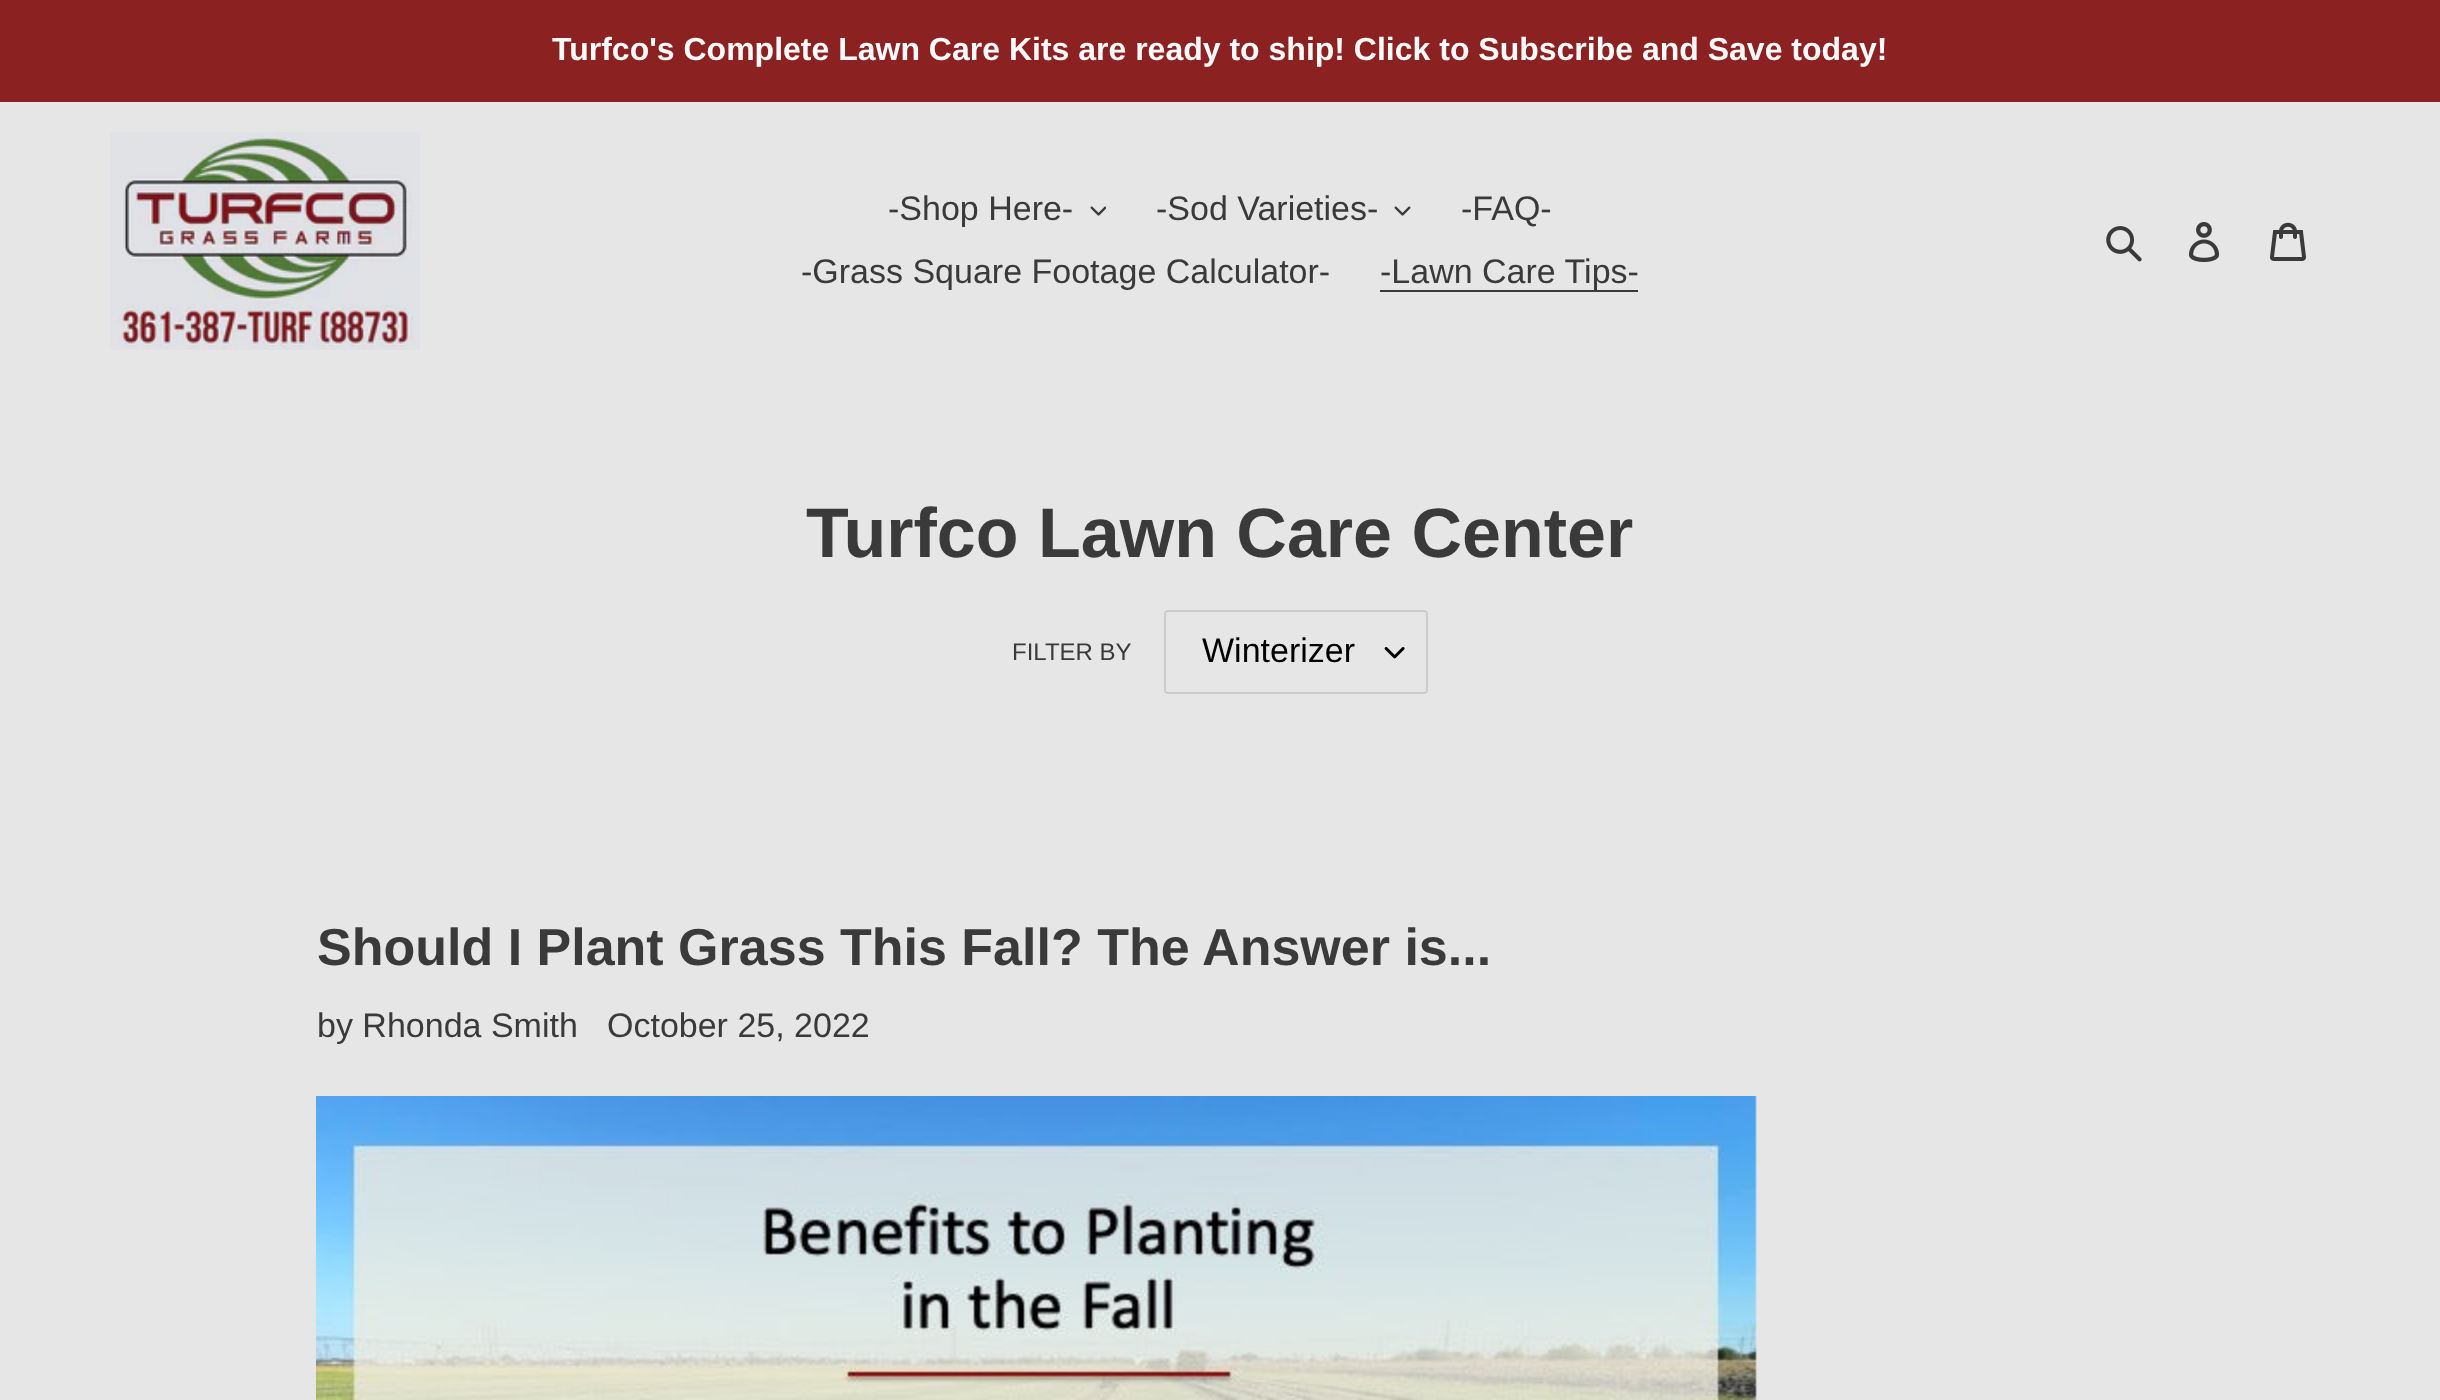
<svg xmlns="http://www.w3.org/2000/svg" width="2440" height="1400" viewBox="0 0 2440 1400">
  <rect width="100%" height="100%" fill="rgb(230,230,230)"/>
  <rect x="0" y="0" width="2440" height="102" fill="rgb(139,33,33)"/>
  <text x="552" y="60" font-family="Liberation Sans" font-size="32" font-weight="bold" fill="rgb(250,250,250)">Turfco's Complete Lawn Care Kits are ready to ship! Click to Subscribe and Save today!</text>
  <image x="110" y="132" width="310" height="218" href="pic1.png"/>
  <text x="888" y="220" font-family="Liberation Sans" font-size="34" fill="rgb(58,58,58)">-Shop Here-</text>
  <image x="1090" y="206" width="16" height="10" href="pic2.png"/>
  <text x="1156" y="220" font-family="Liberation Sans" font-size="34" fill="rgb(58,58,58)">-Sod Varieties-</text>
  <image x="1394" y="206" width="17" height="10" href="pic3.png"/>
  <g font-family="Liberation Sans" font-size="34" fill="rgb(58,58,58)">
    <text x="1461" y="220">-FAQ-</text>
    <text x="801" y="283">-Grass Square Footage Calculator-</text>
  </g>
  <rect x="1380" y="290" width="258" height="2" fill="rgb(58,58,58)"/>
  <text x="1380" y="283" font-family="Liberation Sans" font-size="34" fill="rgb(58,58,58)">-Lawn Care Tips-</text>
  <image x="2106" y="226" width="36" height="36" href="pic4.png"/>
  <image x="2189" y="222" width="31" height="40" href="pic5.png"/>
  <image x="2270" y="222" width="36" height="39" href="pic6.png"/>
  <text x="806" y="557" font-family="Liberation Sans" font-size="70" font-weight="bold" fill="rgb(58,58,58)">Turfco Lawn Care Center</text>
  <text x="1012" y="660" font-family="Liberation Sans" font-size="24" fill="rgb(58,58,58)">FILTER BY</text>
  <image x="1384" y="647" width="21" height="12" href="pic7.png"/>
  <rect x="1165" y="611" width="262" height="82" rx="3" fill="none" stroke="rgb(204,204,204)" stroke-width="2"/>
  <text x="1202" y="662" font-family="Liberation Sans" font-size="34" fill="rgb(0,0,0)">Winterizer</text>
  <text x="317" y="965" font-family="Liberation Sans" font-size="52" font-weight="bold" fill="rgb(58,58,58)">Should I Plant Grass This Fall? The Answer is...</text>
  <g font-family="Liberation Sans" font-size="34" fill="rgb(58,58,58)">
    <text x="317" y="1037">by Rhonda Smith</text>
    <text x="607" y="1037">October 25, 2022</text>
  </g>
  <image x="316" y="1096" width="1441" height="304" href="pic8.png"/>
</svg>
